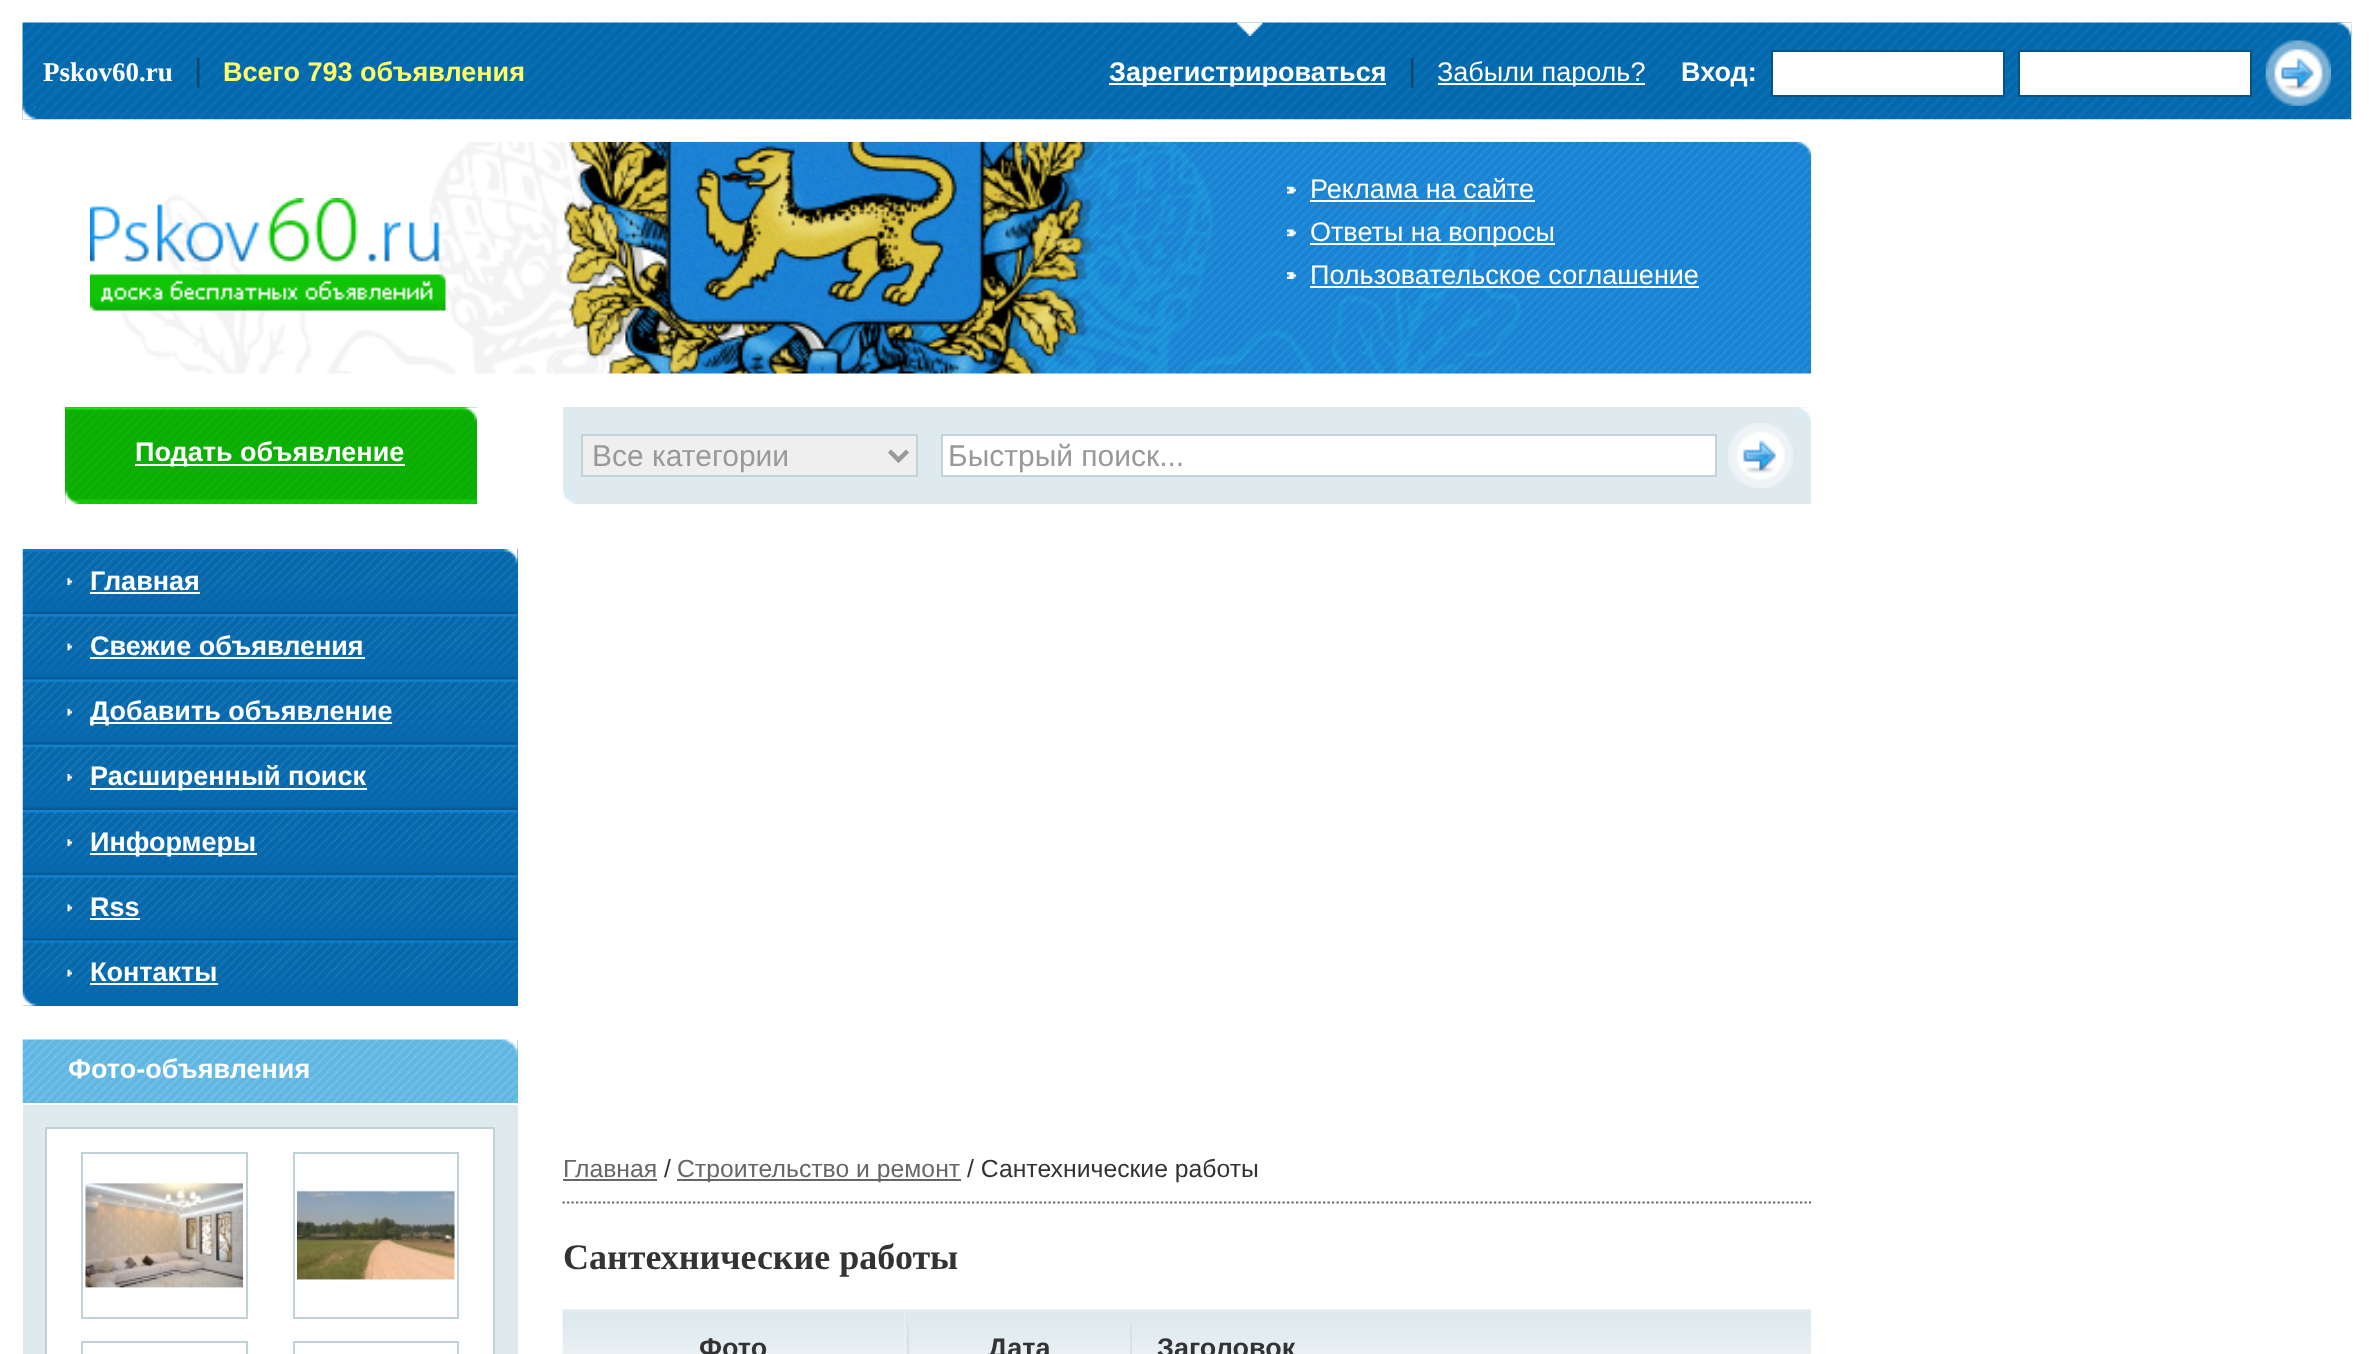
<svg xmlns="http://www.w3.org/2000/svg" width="2372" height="1354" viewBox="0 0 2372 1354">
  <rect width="100%" height="100%" fill="rgb(255,255,255)"/>
  <image x="22" y="22" width="2330" height="98" href="pic1.png"/>
  <image x="2337" y="22" width="15" height="14" href="pic2.png"/>
  <text x="43" y="81" font-family="Liberation Serif" font-size="27" font-weight="bold" fill="rgb(255,255,255)">Pskov60.ru</text>
  <text x="194" y="81" font-family="Liberation Sans" font-size="32" fill="rgb(14,72,113)">|</text>
  <text x="223" y="81" font-family="Liberation Sans" font-size="27" font-weight="bold" fill="rgb(255,255,102)">Всего 793 объявления</text>
  <image x="1237" y="22" width="26" height="14" href="pic3.png"/>
  <rect x="1109" y="83" width="277" height="2" fill="rgb(255,255,255)"/>
  <text x="1109" y="81" font-family="Liberation Sans" font-size="27" font-weight="bold" fill="rgb(255,255,255)">Зарегистрироваться</text>
  <text x="1408" y="81" font-family="Liberation Sans" font-size="32" fill="rgb(14,72,113)">|</text>
  <rect x="1438" y="83" width="207" height="2" fill="rgb(255,255,255)"/>
  <text x="1437" y="81" font-family="Liberation Sans" font-size="27" fill="rgb(255,255,255)">Забыли пароль?</text>
  <text x="1681" y="81" font-family="Liberation Sans" font-size="27" font-weight="bold" fill="rgb(255,255,255)">Вход:</text>
  <rect x="1772" y="51" width="232" height="45" fill="rgb(255,255,255)" stroke="rgb(5,82,135)" stroke-width="2"/>
  <rect x="2019" y="51" width="232" height="45" fill="rgb(255,255,255)" stroke="rgb(5,82,135)" stroke-width="2"/>
  <image x="2265" y="40" width="66" height="66" href="pic4.png"/>
  <image x="22" y="105" width="14" height="15" href="pic5.png"/>
  <image x="121" y="141" width="1691" height="233" href="pic6.png"/>
  <image x="90" y="198" width="356" height="113" href="pic7.png"/>
  <image x="1287" y="186" width="9" height="8" href="pic8.png"/>
  <text x="1310" y="198" font-family="Liberation Sans" font-size="27" fill="rgb(255,255,255)">Реклама на сайте</text>
  <rect x="1310" y="200" width="225" height="2" fill="rgb(255,255,255)"/>
  <image x="1287" y="229" width="9" height="8" href="pic9.png"/>
  <rect x="1310" y="243" width="245" height="2" fill="rgb(255,255,255)"/>
  <text x="1310" y="241" font-family="Liberation Sans" font-size="27" fill="rgb(255,255,255)">Ответы на вопросы</text>
  <image x="1287" y="272" width="9" height="7" href="pic10.png"/>
  <text x="1310" y="284" font-family="Liberation Sans" font-size="27" fill="rgb(255,255,255)">Пользовательское соглашение</text>
  <rect x="1310" y="286" width="389" height="2" fill="rgb(255,255,255)"/>
  <rect x="65" y="407" width="412" height="97" fill="rgb(13,173,5)"/>
  <image x="65" y="407" width="412" height="97" href="pic11.png"/>
  <rect x="135" y="464" width="270" height="2" fill="rgb(255,255,255)"/>
  <text x="135" y="461" font-family="Liberation Sans" font-size="27" font-weight="bold" fill="rgb(255,255,255)">Подать объявление</text>
  <rect x="517" y="549" width="1" height="65" fill="rgb(5,104,173)"/>
  <image x="22" y="549" width="496" height="66" href="pic12.png"/>
  <image x="67" y="578" width="5" height="7" href="pic13.png"/>
  <text x="90" y="590" font-family="Liberation Sans" font-size="27" font-weight="bold" fill="rgb(255,255,255)">Главная</text>
  <rect x="90" y="592" width="110" height="2" fill="rgb(255,255,255)"/>
  <rect x="23" y="614" width="495" height="131" fill="rgb(5,104,173)"/>
  <image x="22" y="614" width="496" height="66" href="pic14.png"/>
  <image x="67" y="643" width="5" height="8" href="pic15.png"/>
  <text x="90" y="655" font-family="Liberation Sans" font-size="27" font-weight="bold" fill="rgb(255,255,255)">Свежие объявления</text>
  <rect x="90" y="657" width="275" height="2" fill="rgb(255,255,255)"/>
  <image x="22" y="679" width="496" height="66" href="pic16.png"/>
  <image x="67" y="708" width="5" height="8" href="pic17.png"/>
  <rect x="90" y="722" width="302" height="2" fill="rgb(255,255,255)"/>
  <text x="90" y="720" font-family="Liberation Sans" font-size="27" font-weight="bold" fill="rgb(255,255,255)">Добавить объявление</text>
  <rect x="517" y="745" width="1" height="130" fill="rgb(5,104,173)"/>
  <image x="22" y="744" width="496" height="66" href="pic18.png"/>
  <image x="67" y="774" width="5" height="7" href="pic19.png"/>
  <rect x="90" y="788" width="277" height="2" fill="rgb(255,255,255)"/>
  <text x="90" y="785" font-family="Liberation Sans" font-size="27" font-weight="bold" fill="rgb(255,255,255)">Расширенный поиск</text>
  <image x="22" y="810" width="496" height="66" href="pic20.png"/>
  <image x="67" y="839" width="5" height="7" href="pic21.png"/>
  <rect x="90" y="853" width="167" height="2" fill="rgb(255,255,255)"/>
  <text x="90" y="851" font-family="Liberation Sans" font-size="27" font-weight="bold" fill="rgb(255,255,255)">Информеры</text>
  <rect x="23" y="875" width="495" height="131" fill="rgb(5,104,173)"/>
  <image x="22" y="875" width="496" height="66" href="pic14.png"/>
  <image x="67" y="904" width="5" height="8" href="pic15.png"/>
  <text x="90" y="916" font-family="Liberation Sans" font-size="27" font-weight="bold" fill="rgb(255,255,255)">Rss</text>
  <rect x="90" y="918" width="50" height="2" fill="rgb(255,255,255)"/>
  <image x="22" y="940" width="496" height="66" href="pic22.png"/>
  <image x="67" y="969" width="5" height="8" href="pic23.png"/>
  <text x="90" y="981" font-family="Liberation Sans" font-size="27" font-weight="bold" fill="rgb(255,255,255)">Контакты</text>
  <rect x="90" y="983" width="128" height="2" fill="rgb(255,255,255)"/>
  <rect x="23" y="1040" width="495" height="63" fill="rgb(97,182,225)"/>
  <image x="22" y="1039" width="496" height="64" href="pic24.png"/>
  <text x="68" y="1078" font-family="Liberation Sans" font-size="27" font-weight="bold" fill="rgb(255,255,255)">Фото-объявления</text>
  <rect x="23" y="1105" width="495" height="249" fill="rgb(223,234,239)"/>
  <rect x="46" y="1128" width="448" height="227" fill="rgb(255,255,255)" stroke="rgb(193,209,216)" stroke-width="2"/>
  <rect x="82" y="1153" width="165" height="165" fill="none" stroke="rgb(193,209,216)" stroke-width="2"/>
  <image x="85" y="1181" width="158" height="108" href="pic25.png"/>
  <rect x="294" y="1153" width="164" height="165" fill="none" stroke="rgb(193,209,216)" stroke-width="2"/>
  <image x="297" y="1190" width="158" height="91" href="pic26.png"/>
  <rect x="82" y="1342" width="165" height="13" fill="none" stroke="rgb(193,209,216)" stroke-width="2"/>
  <rect x="294" y="1342" width="164" height="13" fill="none" stroke="rgb(193,209,216)" stroke-width="2"/>
  <rect x="563" y="407" width="1248" height="97" fill="rgb(223,234,239)"/>
  <image x="1798" y="407" width="13" height="14" href="pic27.png"/>
  <rect x="582" y="435" width="335" height="41" fill="rgb(239,239,239)" stroke="rgb(194,211,220)" stroke-width="2"/>
  <path d="M889.5 451L898.5 460L907.5 451" fill="none" stroke="rgb(153,153,153)" stroke-width="4.5"/>
  <text x="592" y="466" font-family="Liberation Sans" font-size="30" fill="rgb(153,153,153)">Все категории</text>
  <rect x="942" y="435" width="774" height="41" fill="rgb(255,255,255)" stroke="rgb(194,211,220)" stroke-width="2"/>
  <text x="948" y="466" font-family="Liberation Sans" font-size="30" fill="rgb(153,153,153)">Быстрый поиск...</text>
  <image x="1728" y="423" width="65" height="65" href="pic28.png"/>
  <image x="562" y="490" width="14" height="14" href="pic29.png"/>
  <path d="M562.5 1202.5H1811" fill="none" stroke="rgb(102,102,102)" stroke-width="2.2" stroke-dasharray="2.25 2.25"/>
  <text x="563" y="1177" font-family="Liberation Sans" font-size="24.75" fill="rgb(102,102,102)">Главная</text>
  <rect x="563" y="1179" width="94" height="2" fill="rgb(102,102,102)"/>
  <text x="664" y="1177" font-family="Liberation Sans" font-size="24.75" fill="rgb(51,51,51)">/</text>
  <rect x="677" y="1179" width="284" height="2" fill="rgb(102,102,102)"/>
  <text x="677" y="1177" font-family="Liberation Sans" font-size="24.75" fill="rgb(102,102,102)">Строительство и ремонт</text>
  <text x="967" y="1177" font-family="Liberation Sans" font-size="24.75" fill="rgb(51,51,51)">/ Сантехнические работы</text>
  <text x="563" y="1269" font-family="Liberation Serif" font-size="36" font-weight="bold" fill="rgb(51,51,51)">Сантехнические работы</text>
  <image x="562" y="1309" width="343" height="45" href="pic30.png"/>
  <text x="699" y="1357" font-family="Liberation Sans" font-size="27" font-weight="bold" fill="rgb(51,51,51)">Фото</text>
  <image x="904" y="1309" width="230" height="45" href="pic31.png"/>
  <rect x="1130" y="1325" width="2" height="29" fill="rgb(214,226,231)"/>
  <rect x="907" y="1325" width="2" height="29" fill="rgb(214,226,231)"/>
  <text x="988" y="1357" font-family="Liberation Sans" font-size="27" font-weight="bold" fill="rgb(51,51,51)">Дата</text>
  <image x="1134" y="1309" width="677" height="45" href="pic32.png"/>
  <text x="1157" y="1357" font-family="Liberation Sans" font-size="27" font-weight="bold" fill="rgb(51,51,51)">Заголовок</text>
</svg>
